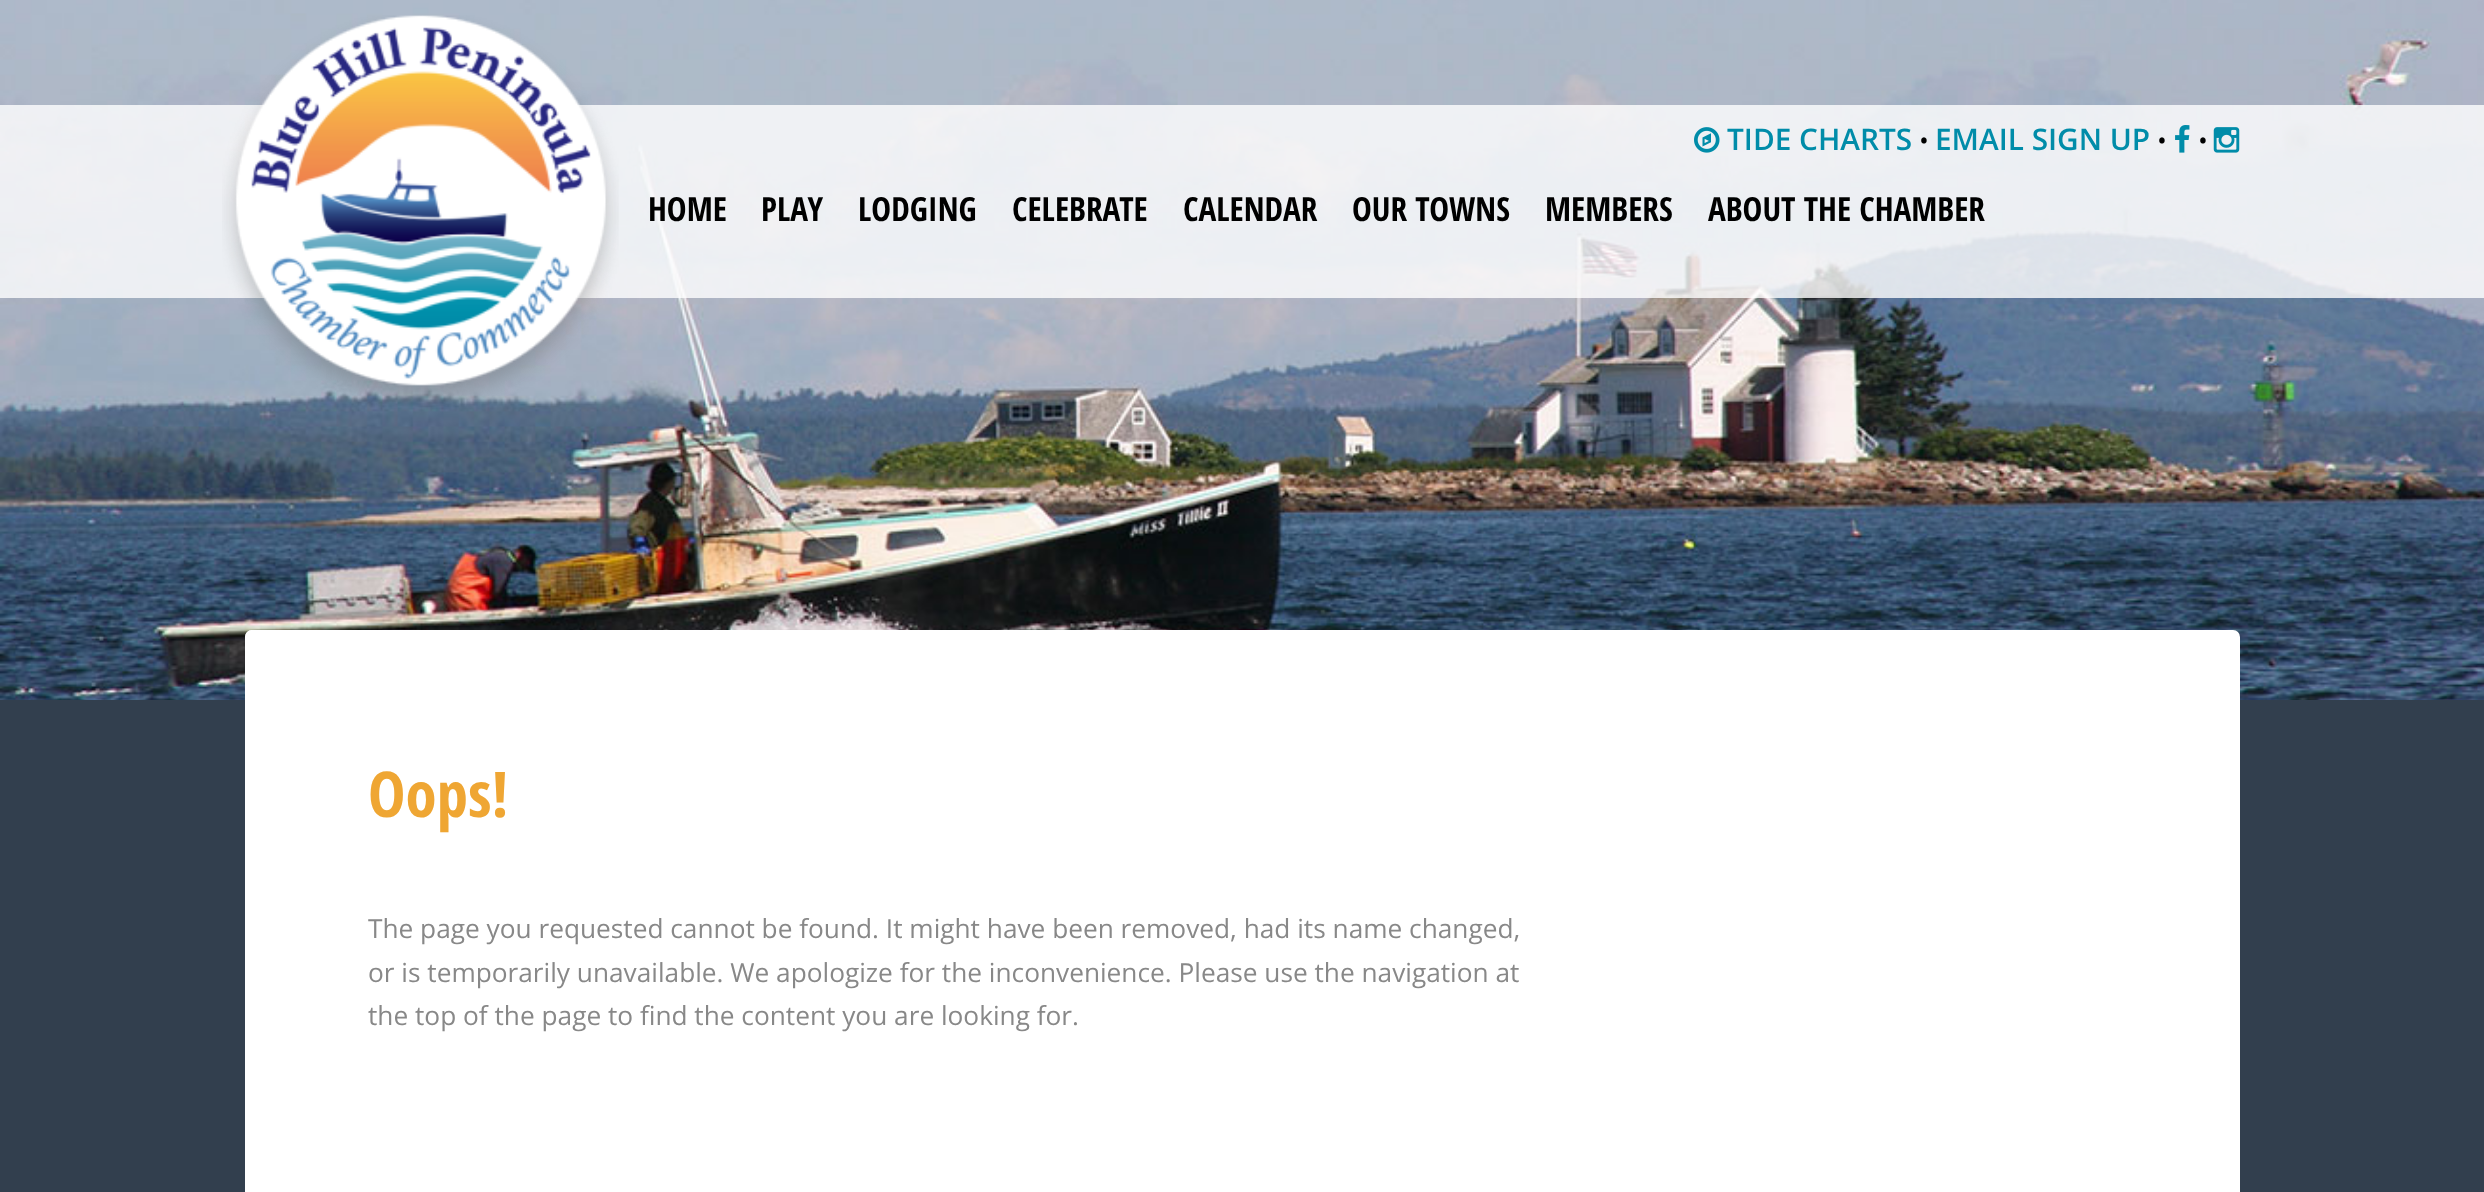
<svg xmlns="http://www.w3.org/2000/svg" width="2484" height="1192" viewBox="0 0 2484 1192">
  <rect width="100%" height="100%" fill="rgb(50,63,78)"/>
  <image x="0" y="0" width="2484" height="700" href="pic1.png"/>
  <rect x="0" y="105" width="2484" height="193" fill="rgba(255,255,255,0.8)"/>
  <image x="222" y="15" width="397" height="392" href="pic2.png"/>
  <image x="1694" y="127" width="26" height="26" href="pic3.png"/>
  <text x="1727" y="150" font-family="Open Sans" font-size="29.75" font-weight="600" fill="rgb(0,140,169)">TIDE CHARTS</text>
  <text x="1919" y="150" font-family="Open Sans" font-size="26.25" fill="rgb(0,0,0)">•</text>
  <text x="1935" y="150" font-family="Open Sans" font-size="29.75" font-weight="600" fill="rgb(0,140,169)">EMAIL SIGN UP</text>
  <text x="2157" y="150" font-family="Open Sans" font-size="26.25" fill="rgb(0,0,0)">•</text>
  <image x="2175" y="125" width="15" height="28" href="pic4.png"/>
  <text x="2198" y="150" font-family="Open Sans" font-size="26.25" fill="rgb(0,0,0)">•</text>
  <image x="2213" y="127" width="27" height="26" href="pic5.png"/>
  <g font-family="Open Sans Condensed" font-size="33.25" font-weight="bold" fill="rgb(0,0,0)">
    <text x="648" y="221">HOME</text>
    <text x="761" y="221">PLAY</text>
    <text x="858" y="221">LODGING</text>
    <text x="1012" y="221">CELEBRATE</text>
    <text x="1183" y="221">CALENDAR</text>
    <text x="1352" y="221">OUR TOWNS</text>
    <text x="1545" y="221">MEMBERS</text>
    <text x="1708" y="221">ABOUT THE CHAMBER</text>
  </g>
  <rect x="245" y="630" width="1995" height="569" rx="7" fill="rgb(255,255,255)"/>
  <rect x="245" y="630" width="1405" height="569" rx="7" fill="rgb(255,255,255)"/>
  <text x="368" y="817" font-family="Open Sans Condensed" font-size="63" font-weight="bold" fill="rgb(239,166,51)">Oops!</text>
  <g font-family="Open Sans" font-size="26.25" fill="rgb(136,136,136)">
    <text>
      <tspan x="368" y="938">The page you requested cannot be found. It might have been removed, had its name changed,</tspan>
      <tspan x="368" y="982">or is temporarily unavailable. We apologize for the inconvenience. Please use the navigation at</tspan>
      <tspan x="368" y="1025">the top of the page to find the content you are looking for.</tspan>
    </text>
  </g>
</svg>
